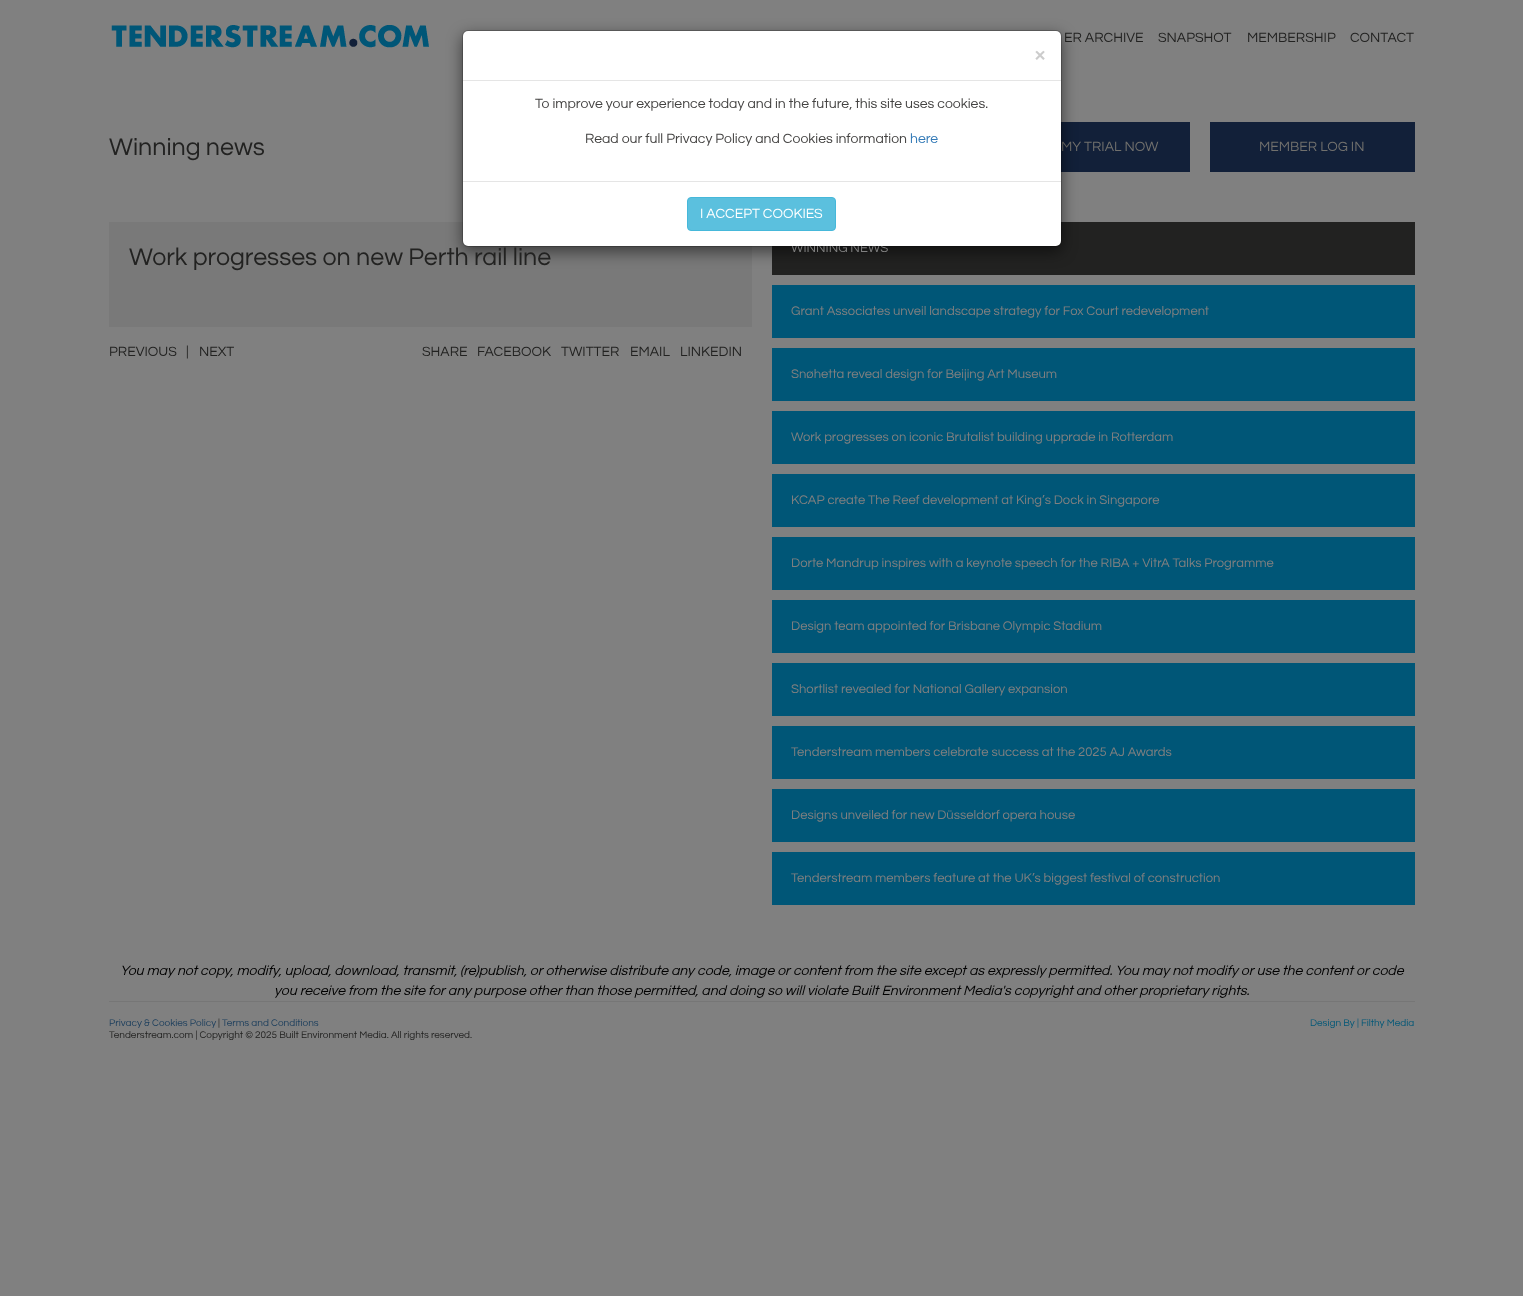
<svg xmlns="http://www.w3.org/2000/svg" width="1523" height="1296" viewBox="0 0 1523 1296">
  <rect width="100%" height="100%" fill="rgb(128,128,128)"/>
  <image x="111" y="25" width="318" height="23" href="pic1.png"/>
  <g font-family="Questrial" font-size="14" fill="rgb(34,34,33)">
    <text x="1064" y="42">ER ARCHIVE</text>
    <text x="1158" y="42">SNAPSHOT</text>
    <text x="1247" y="42">MEMBERSHIP</text>
    <text x="1350" y="42">CONTACT</text>
  </g>
  <text x="109" y="155" font-family="Questrial" font-size="25" fill="rgb(34,34,33)">Winning news</text>
  <rect x="1061" y="122" width="129" height="50" fill="rgb(18,32,57)"/>
  <text x="1061" y="151" font-family="Questrial" font-size="14" fill="rgb(113,112,109)">MY TRIAL NOW</text>
  <rect x="1210" y="122" width="205" height="50" fill="rgb(18,32,57)"/>
  <text x="1259" y="151" font-family="Questrial" font-size="14" fill="rgb(113,112,109)">MEMBER LOG IN</text>
  <rect x="109" y="222" width="643" height="105" fill="rgb(121,121,121)"/>
  <rect x="772" y="222" width="643" height="53" fill="rgb(34,34,33)"/>
  <rect x="462" y="35" width="600" height="217" rx="6" fill="rgba(0,0,0,0.5)" filter="blur(7.5px)"/>
  <text x="791" y="252" font-family="Questrial" font-size="13" fill="rgb(128,128,128)">WINNING NEWS</text>
  <rect x="463" y="31" width="598" height="215" rx="5" fill="rgb(255,255,255)"/>
  <rect x="462.5" y="30.5" width="599" height="216" rx="5.5" fill="none" stroke="rgba(0,0,0,0.2)"/>
  <rect x="463" y="80" width="598" height="1" fill="rgb(229,229,229)"/>
  <text x="1034" y="61" font-family="Questrial" font-size="21" font-weight="bold" fill="rgb(204,204,204)">×</text>
  <g font-family="Questrial" font-size="14" fill="rgb(68,67,66)">
    <text x="535" y="108">To improve your experience today and in the future, this site uses cookies.</text>
    <text x="585" y="143">Read our full Privacy Policy and Cookies information</text>
  </g>
  <text x="910" y="143" font-family="Questrial" font-size="14" fill="rgb(51,122,183)">here</text>
  <rect x="463" y="181" width="598" height="1" fill="rgb(229,229,229)"/>
  <rect x="687.5" y="197.5" width="148" height="33" rx="3.5" fill="rgb(91,192,222)" stroke="rgb(70,184,218)"/>
  <text x="700" y="218" font-family="Questrial" font-size="14" fill="rgb(255,255,255)">I ACCEPT COOKIES</text>
  <text x="129" y="265" font-family="Questrial" font-size="25" fill="rgb(34,34,33)">Work progresses on new Perth rail line</text>
  <g font-family="Questrial" font-size="14" fill="rgb(34,34,33)">
    <text x="109" y="356">PREVIOUS</text>
    <text x="186" y="356">|</text>
    <text x="199" y="356">NEXT</text>
    <text x="422" y="356">SHARE</text>
    <text x="477" y="356">FACEBOOK</text>
    <text x="561" y="356">TWITTER</text>
    <text x="630" y="356">EMAIL</text>
    <text x="680" y="356">LINKEDIN</text>
  </g>
  <rect x="772" y="285" width="643" height="53" fill="rgb(0,86,119)"/>
  <text x="791" y="315" font-family="Questrial" font-size="13" fill="rgb(128,128,128)">Grant Associates unveil landscape strategy for Fox Court redevelopment</text>
  <rect x="772" y="348" width="643" height="53" fill="rgb(0,86,119)"/>
  <text x="791" y="378" font-family="Questrial" font-size="13" fill="rgb(128,128,128)">Snøhetta reveal design for Beijing Art Museum</text>
  <rect x="772" y="411" width="643" height="53" fill="rgb(0,86,119)"/>
  <text x="791" y="441" font-family="Questrial" font-size="13" fill="rgb(128,128,128)">Work progresses on iconic Brutalist building upprade in Rotterdam</text>
  <rect x="772" y="474" width="643" height="53" fill="rgb(0,86,119)"/>
  <text x="791" y="504" font-family="Questrial" font-size="13" fill="rgb(128,128,128)">KCAP create The Reef development at King’s Dock in Singapore</text>
  <rect x="772" y="537" width="643" height="53" fill="rgb(0,86,119)"/>
  <text x="791" y="567" font-family="Questrial" font-size="13" fill="rgb(128,128,128)">Dorte Mandrup inspires with a keynote speech for the RIBA + VitrA Talks Programme</text>
  <rect x="772" y="600" width="643" height="53" fill="rgb(0,86,119)"/>
  <text x="791" y="630" font-family="Questrial" font-size="13" fill="rgb(128,128,128)">Design team appointed for Brisbane Olympic Stadium</text>
  <rect x="772" y="663" width="643" height="53" fill="rgb(0,86,119)"/>
  <text x="791" y="693" font-family="Questrial" font-size="13" fill="rgb(128,128,128)">Shortlist revealed for National Gallery expansion</text>
  <rect x="772" y="726" width="643" height="53" fill="rgb(0,86,119)"/>
  <text x="791" y="756" font-family="Questrial" font-size="13" fill="rgb(128,128,128)">Tenderstream members celebrate success at the 2025 AJ Awards</text>
  <rect x="772" y="789" width="643" height="53" fill="rgb(0,86,119)"/>
  <text x="791" y="819" font-family="Questrial" font-size="13" fill="rgb(128,128,128)">Designs unveiled for new Düsseldorf opera house</text>
  <rect x="772" y="852" width="643" height="53" fill="rgb(0,86,119)"/>
  <text x="791" y="882" font-family="Questrial" font-size="13" fill="rgb(128,128,128)">Tenderstream members feature at the UK’s biggest festival of construction</text>
  <g font-family="Questrial" font-size="14" font-style="italic" fill="rgb(0,0,0)">
    <text x="120" y="975">You may not copy, modify, upload, download, transmit, (re)publish, or otherwise distribute any code, image or content from the site except as expressly permitted. You may not modify or use the content or code</text>
    <text x="274" y="995">you receive from the site for any purpose other than those permitted, and doing so will violate Built Environment Media's copyright and other proprietary rights.</text>
  </g>
  <rect x="109" y="1001" width="1306" height="1" fill="rgb(118,118,118)"/>
  <text x="109" y="1026" font-family="Questrial" font-size="10" fill="rgb(26,61,92)">Privacy &amp; Cookies Policy</text>
  <text x="218" y="1026" font-family="Questrial" font-size="10" fill="rgb(34,34,33)">|</text>
  <text x="222" y="1026" font-family="Questrial" font-size="10" fill="rgb(26,61,92)">Terms and Conditions</text>
  <text x="109" y="1038" font-family="Questrial" font-size="10" fill="rgb(34,34,33)">Tenderstream.com | Copyright © 2025 Built Environment Media. All rights reserved.</text>
  <text x="1310" y="1026" font-family="Questrial" font-size="10" fill="rgb(0,87,119)">Design By | Filthy Media</text>
</svg>
